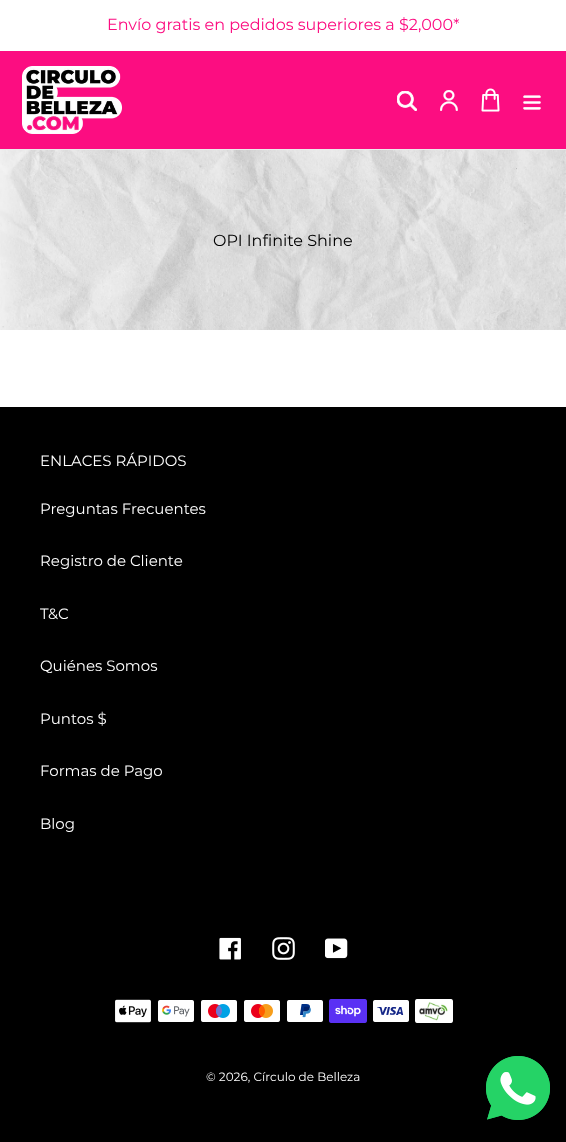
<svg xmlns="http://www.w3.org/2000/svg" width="566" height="1142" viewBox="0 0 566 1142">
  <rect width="100%" height="100%" fill="rgb(255,255,255)"/>
  <text x="107" y="30" font-family="Montserrat" font-size="16" fill="rgb(252,13,129)">Envío gratis en pedidos superiores a $2,000*</text>
  <rect x="0" y="149" width="566" height="1" fill="rgb(235,235,235)"/>
  <rect x="0" y="51" width="566" height="98" fill="rgb(252,13,129)"/>
  <image x="22" y="66" width="100" height="68" href="pic1.png"/>
  <image x="397" y="91" width="20" height="20" href="pic2.png"/>
  <image x="440" y="90" width="18" height="21" href="pic3.png"/>
  <image x="481" y="88" width="19" height="24" href="pic4.png"/>
  <image x="523" y="95" width="18" height="15" href="pic5.png"/>
  <image x="0" y="150" width="566" height="180" href="pic6.png"/>
  <text x="213" y="246" font-family="Montserrat" font-size="16" fill="rgb(0,0,0)">OPI Infinite Shine</text>
  <rect x="0" y="407" width="566" height="735" fill="rgb(0,0,0)"/>
  <g font-family="Montserrat" font-size="15" fill="rgb(255,255,255)">
    <text x="40" y="466">ENLACES RÁPIDOS</text>
    <text x="40" y="514">Preguntas Frecuentes</text>
    <text x="40" y="566">Registro de Cliente</text>
    <text x="40" y="619">T&amp;C</text>
    <text x="40" y="671">Quiénes Somos</text>
    <text x="40" y="724">Puntos $</text>
    <text x="40" y="776">Formas de Pago</text>
    <text x="40" y="829">Blog</text>
  </g>
  <image x="219" y="937" width="22" height="23" href="pic7.png"/>
  <image x="272" y="937" width="23" height="23" href="pic8.png"/>
  <image x="325" y="938" width="23" height="21" href="pic9.png"/>
  <image x="115" y="999" width="36" height="24" href="pic10.png"/>
  <image x="158" y="1000" width="36" height="22" href="pic11.png"/>
  <image x="201" y="1000" width="36" height="22" href="pic12.png"/>
  <image x="244" y="1000" width="36" height="22" href="pic13.png"/>
  <image x="287" y="1000" width="36" height="22" href="pic14.png"/>
  <image x="329" y="999" width="38" height="24" href="pic15.png"/>
  <image x="373" y="1000" width="36" height="22" href="pic16.png"/>
  <image x="415" y="999" width="38" height="24" href="pic17.png"/>
  <text x="206" y="1081" font-family="Montserrat" font-size="12" fill="rgb(255,255,255)">© 2026, Círculo de Belleza</text>
  <image x="486" y="1056" width="64" height="64" href="pic18.png"/>
  <image x="486" y="1056" width="64" height="64" href="pic19.png"/>
</svg>
